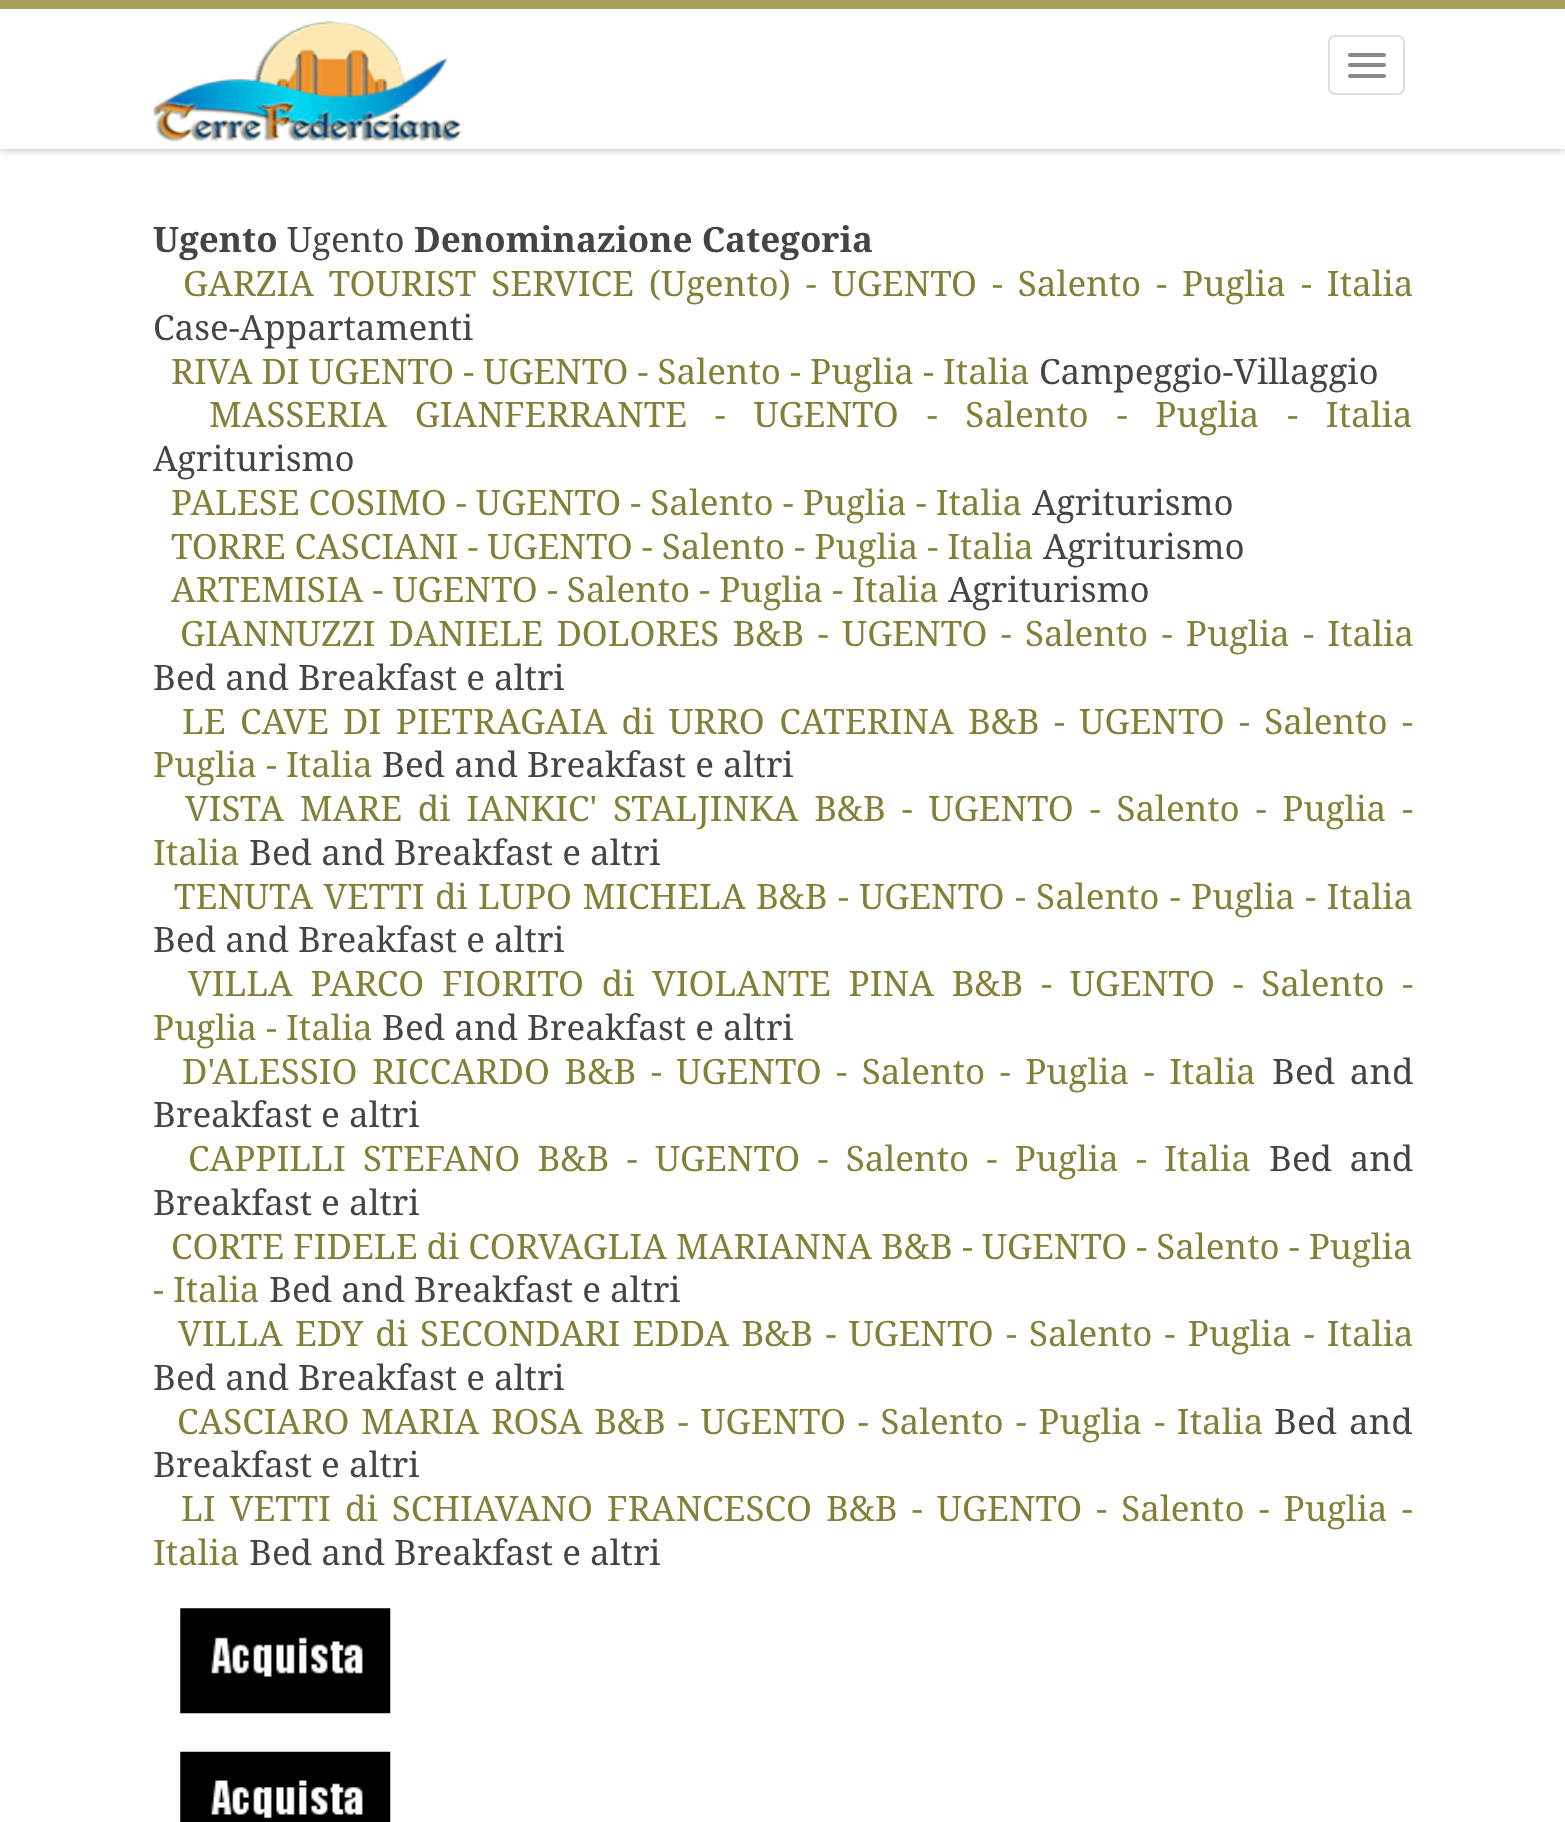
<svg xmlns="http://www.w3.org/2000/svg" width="1565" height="1822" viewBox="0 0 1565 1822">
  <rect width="100%" height="100%" fill="rgb(255,255,255)"/>
  <rect x="0" y="0" width="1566" height="149" fill="rgba(0,0,0,0.3)" filter="blur(4.5px)"/>
  <rect x="0" y="9" width="1565" height="140" fill="rgb(255,255,255)"/>
  <rect x="0" y="0" width="1565" height="9" fill="rgb(166,159,87)"/>
  <image x="153" y="21" width="309" height="121" href="pic1.png"/>
  <rect x="1329" y="36" width="75" height="58" rx="6" fill="none" stroke="rgb(221,221,221)" stroke-width="2"/>
  <rect x="1348" y="53" width="38" height="4" rx="2" fill="rgb(136,136,136)"/>
  <rect x="1348" y="63" width="38" height="4" rx="2" fill="rgb(136,136,136)"/>
  <rect x="1348" y="74" width="38" height="4" rx="2" fill="rgb(136,136,136)"/>
  <text x="153" y="252" font-family="Noto Serif" font-size="35" font-weight="bold" fill="rgb(68,68,68)">Ugento</text>
  <text x="287" y="252" font-family="Noto Serif" font-size="35" fill="rgb(68,68,68)">Ugento</text>
  <text x="414" y="252" font-family="Noto Serif" font-size="35" font-weight="bold" fill="rgb(68,68,68)">Denominazione Categoria</text>
  <text x="183" y="296" word-spacing="5.9" font-family="Noto Serif" font-size="35" fill="rgb(131,127,55)">GARZIA TOURIST SERVICE (Ugento) - UGENTO - Salento - Puglia - Italia</text>
  <text x="153" y="340" font-family="Noto Serif" font-size="35" fill="rgb(68,68,68)">Case-Appartamenti</text>
  <text x="171" y="384" font-family="Noto Serif" font-size="35" fill="rgb(131,127,55)">RIVA DI UGENTO - UGENTO - Salento - Puglia - Italia</text>
  <text x="1039" y="384" font-family="Noto Serif" font-size="35" fill="rgb(68,68,68)">Campeggio-Villaggio</text>
  <text x="209" y="427" word-spacing="18.75" font-family="Noto Serif" font-size="35" fill="rgb(131,127,55)">MASSERIA GIANFERRANTE - UGENTO - Salento - Puglia - Italia</text>
  <text x="153" y="471" font-family="Noto Serif" font-size="35" fill="rgb(68,68,68)">Agriturismo</text>
  <text x="171" y="515" font-family="Noto Serif" font-size="35" fill="rgb(131,127,55)">PALESE COSIMO - UGENTO - Salento - Puglia - Italia</text>
  <text x="1032" y="515" font-family="Noto Serif" font-size="35" fill="rgb(68,68,68)">Agriturismo</text>
  <text x="171" y="559" font-family="Noto Serif" font-size="35" fill="rgb(131,127,55)">TORRE CASCIANI - UGENTO - Salento - Puglia - Italia</text>
  <text x="1043" y="559" font-family="Noto Serif" font-size="35" fill="rgb(68,68,68)">Agriturismo</text>
  <text x="171" y="602" font-family="Noto Serif" font-size="35" fill="rgb(131,127,55)">ARTEMISIA - UGENTO - Salento - Puglia - Italia</text>
  <text x="948" y="602" font-family="Noto Serif" font-size="35" fill="rgb(68,68,68)">Agriturismo</text>
  <text x="180" y="646" word-spacing="4.25" font-family="Noto Serif" font-size="35" fill="rgb(131,127,55)">GIANNUZZI DANIELE DOLORES B&amp;B - UGENTO - Salento - Puglia - Italia</text>
  <text x="153" y="690" font-family="Noto Serif" font-size="35" fill="rgb(68,68,68)">Bed and Breakfast e altri</text>
  <g font-family="Noto Serif" font-size="35" fill="rgb(131,127,55)">
    <text x="182" y="734" word-spacing="5.25">LE CAVE DI PIETRAGAIA di URRO CATERINA B&amp;B - UGENTO - Salento -</text>
    <text x="153" y="777">Puglia - Italia</text>
  </g>
  <text x="382" y="777" font-family="Noto Serif" font-size="35" fill="rgb(68,68,68)">Bed and Breakfast e altri</text>
  <g font-family="Noto Serif" font-size="35" fill="rgb(131,127,55)">
    <text x="185" y="821" word-spacing="6.75">VISTA MARE di IANKIC' STALJINKA B&amp;B - UGENTO - Salento - Puglia -</text>
    <text x="153" y="865">Italia</text>
  </g>
  <text x="249" y="865" font-family="Noto Serif" font-size="35" fill="rgb(68,68,68)">Bed and Breakfast e altri</text>
  <text x="174" y="909" word-spacing="1.25" font-family="Noto Serif" font-size="35" fill="rgb(131,127,55)">TENUTA VETTI di LUPO MICHELA B&amp;B - UGENTO - Salento - Puglia - Italia</text>
  <text x="153" y="952" font-family="Noto Serif" font-size="35" fill="rgb(68,68,68)">Bed and Breakfast e altri</text>
  <g font-family="Noto Serif" font-size="35" fill="rgb(131,127,55)">
    <text x="188" y="996" word-spacing="8.6">VILLA PARCO FIORITO di VIOLANTE PINA B&amp;B - UGENTO - Salento -</text>
    <text x="153" y="1040">Puglia - Italia</text>
  </g>
  <text x="382" y="1040" font-family="Noto Serif" font-size="35" fill="rgb(68,68,68)">Bed and Breakfast e altri</text>
  <text x="182" y="1084" word-spacing="5.5" font-family="Noto Serif" font-size="35" fill="rgb(131,127,55)">D'ALESSIO RICCARDO B&amp;B - UGENTO - Salento - Puglia - Italia</text>
  <g font-family="Noto Serif" font-size="35" fill="rgb(68,68,68)">
    <text x="1272" y="1084" word-spacing="5.5">Bed and</text>
    <text x="153" y="1127">Breakfast e altri</text>
  </g>
  <text x="188" y="1171" word-spacing="8.25" font-family="Noto Serif" font-size="35" fill="rgb(131,127,55)">CAPPILLI STEFANO B&amp;B - UGENTO - Salento - Puglia - Italia</text>
  <g font-family="Noto Serif" font-size="35" fill="rgb(68,68,68)">
    <text x="1269" y="1171" word-spacing="8.25">Bed and</text>
    <text x="153" y="1215">Breakfast e altri</text>
  </g>
  <g font-family="Noto Serif" font-size="35" fill="rgb(131,127,55)">
    <text x="171" y="1259">CORTE FIDELE di CORVAGLIA MARIANNA B&amp;B - UGENTO - Salento - Puglia</text>
    <text x="153" y="1302">- Italia</text>
  </g>
  <text x="269" y="1302" font-family="Noto Serif" font-size="35" fill="rgb(68,68,68)">Bed and Breakfast e altri</text>
  <text x="178" y="1346" word-spacing="3.1" font-family="Noto Serif" font-size="35" fill="rgb(131,127,55)">VILLA EDY di SECONDARI EDDA B&amp;B - UGENTO - Salento - Puglia - Italia</text>
  <text x="153" y="1390" font-family="Noto Serif" font-size="35" fill="rgb(68,68,68)">Bed and Breakfast e altri</text>
  <text x="177" y="1434" word-spacing="2.75" font-family="Noto Serif" font-size="35" fill="rgb(131,127,55)">CASCIARO MARIA ROSA B&amp;B - UGENTO - Salento - Puglia - Italia</text>
  <g font-family="Noto Serif" font-size="35" fill="rgb(68,68,68)">
    <text x="1274" y="1434" word-spacing="2.75">Bed and</text>
    <text x="153" y="1477">Breakfast e altri</text>
  </g>
  <g font-family="Noto Serif" font-size="35" fill="rgb(131,127,55)">
    <text x="181" y="1521" word-spacing="5">LI VETTI di SCHIAVANO FRANCESCO B&amp;B - UGENTO - Salento - Puglia -</text>
    <text x="153" y="1565">Italia</text>
  </g>
  <text x="249" y="1565" font-family="Noto Serif" font-size="35" fill="rgb(68,68,68)">Bed and Breakfast e altri</text>
  <image x="180" y="1608" width="211" height="106" href="pic2.png"/>
  <image x="180" y="1751" width="211" height="71" href="pic3.png"/>
</svg>
